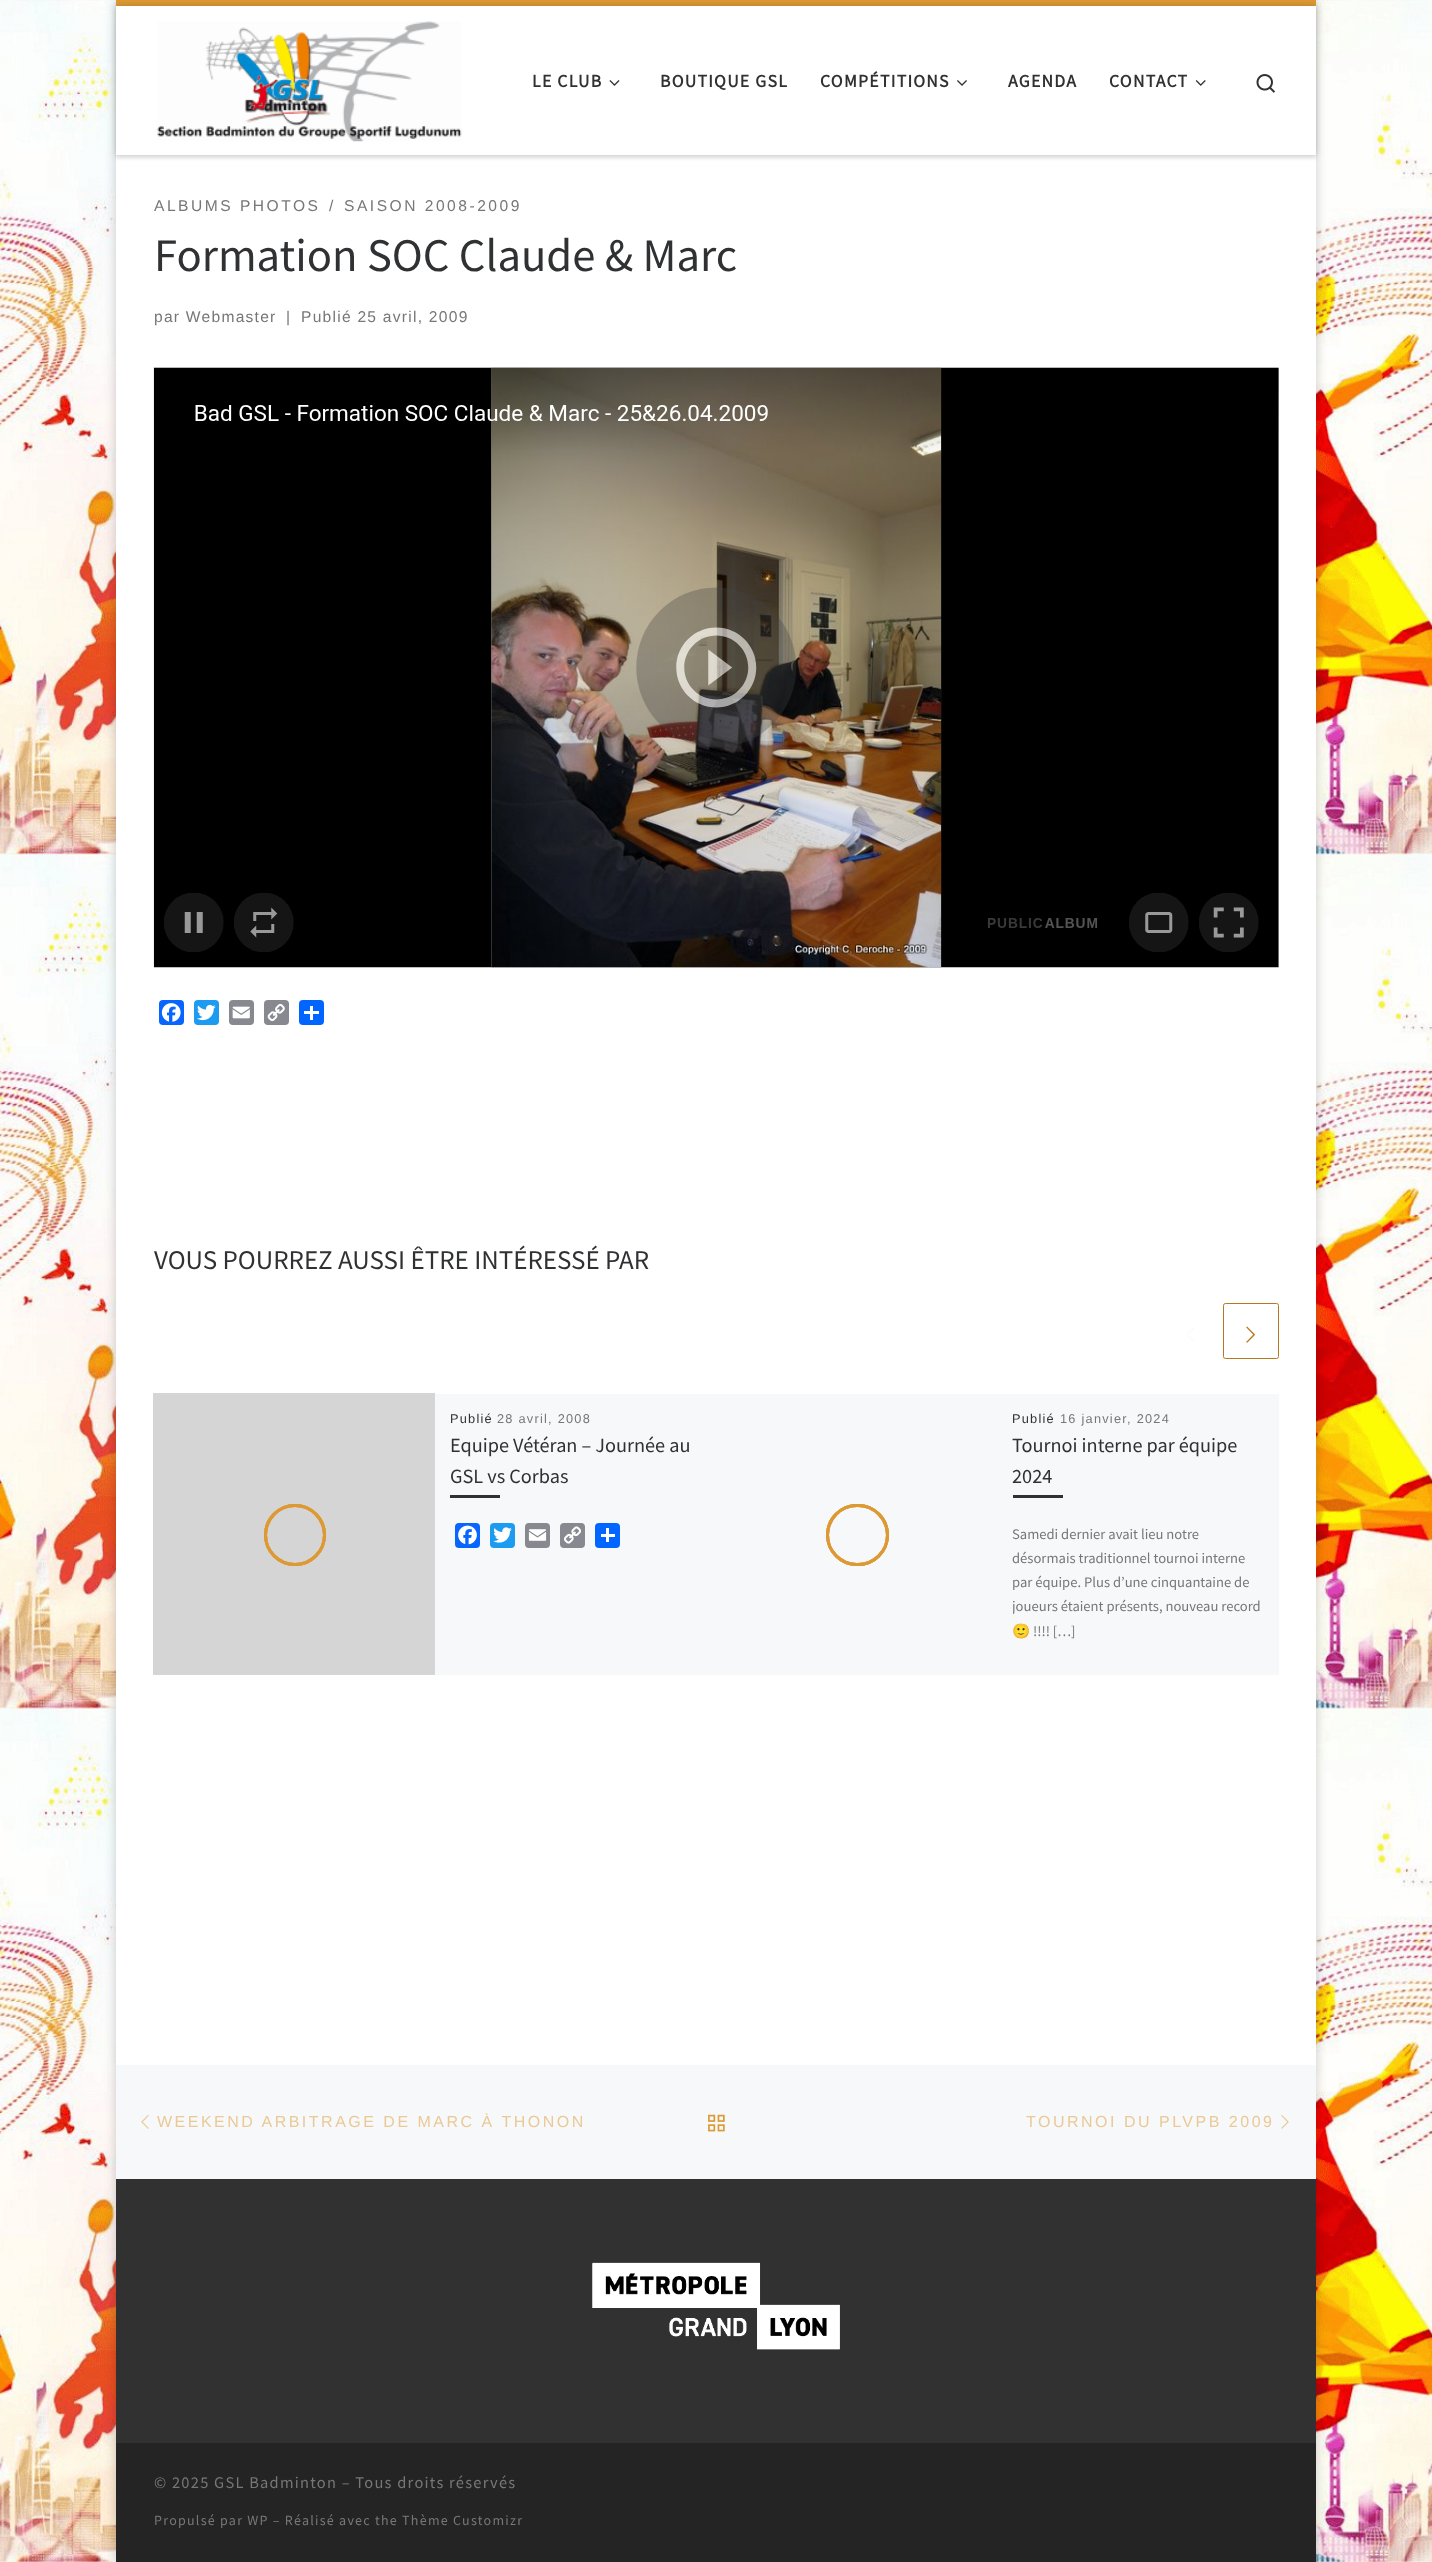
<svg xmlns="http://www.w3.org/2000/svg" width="1432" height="2562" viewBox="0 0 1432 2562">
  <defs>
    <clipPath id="clip1"><rect x="1013" y="1409" width="251" height="252"/></clipPath>
  </defs>
  <rect width="100%" height="100%" fill="rgb(255,255,255)"/>
  <image x="0" y="0" width="1432" height="2562" href="pic1.png"/>
  <rect x="116" y="0" width="1200" height="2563" fill="rgba(0,0,0,0.2)" filter="blur(6px)"/>
  <rect x="116" y="156" width="1200" height="1909" fill="rgb(255,255,255)"/>
  <rect x="116" y="3" width="1200" height="156" fill="rgba(102,102,102,0.08)" filter="blur(1px)"/>
  <rect x="116" y="0" width="1200" height="6" fill="rgb(221,153,51)"/>
  <path d="M116 8V156H1316V155H116Z" fill="rgb(239,239,239)"/>
  <rect x="116" y="6" width="1200" height="149" fill="rgba(0,0,0,0.2)" filter="blur(3px)"/>
  <rect x="116" y="6" width="1200" height="149" fill="rgb(255,255,255)"/>
  <image x="157" y="21" width="305" height="121" href="pic2.png"/>
  <text x="532" y="87" font-family="Source Sans Pro" font-size="17.75" font-weight="bold" letter-spacing="1.25" fill="rgb(48,49,51)">LE CLUB</text>
  <image x="609" y="80" width="11" height="6" href="pic3.png"/>
  <g font-family="Source Sans Pro" font-size="17.75" font-weight="bold" letter-spacing="1.25" fill="rgb(48,49,51)">
    <text x="660" y="87">BOUTIQUE GSL</text>
    <text x="820" y="87">COMPÉTITIONS</text>
  </g>
  <image x="957" y="80" width="10" height="6" href="pic4.png"/>
  <g font-family="Source Sans Pro" font-size="17.75" font-weight="bold" letter-spacing="1.25" fill="rgb(48,49,51)">
    <text x="1008" y="87">AGENDA</text>
    <text x="1109" y="87">CONTACT</text>
  </g>
  <image x="1195" y="80" width="11" height="6" href="pic5.png"/>
  <image x="1256" y="74" width="20" height="19" href="pic6.png"/>
  <g font-family="Liberation Sans" font-size="15.6" letter-spacing="2.5" fill="rgb(119,119,119)">
    <text x="154" y="211">ALBUMS PHOTOS</text>
    <text x="329" y="211">/</text>
    <text x="344" y="211">SAISON 2008-2009</text>
  </g>
  <text x="154" y="271" font-family="Source Sans Pro" font-size="46.7" fill="rgb(48,49,51)">Formation SOC Claude &amp; Marc</text>
  <g font-family="Liberation Sans" font-size="15.6" letter-spacing="1.25" fill="rgb(119,119,119)">
    <text x="154" y="322">par Webmaster</text>
    <text x="286" y="322">|</text>
    <text x="301" y="322">Publié 25 avril, 2009</text>
  </g>
  <image x="153" y="367" width="1126" height="601" href="pic7.png"/>
  <rect x="159" y="1000" width="25" height="25" rx="4" fill="rgb(8,102,255)"/>
  <image x="161" y="1003" width="20" height="19" href="pic8.png"/>
  <rect x="194" y="1000" width="25" height="25" rx="4" fill="rgb(29,155,240)"/>
  <image x="197" y="1004" width="19" height="17" href="pic9.png"/>
  <rect x="229" y="1000" width="25" height="25" rx="4" fill="rgb(136,137,144)"/>
  <image x="232" y="1006" width="18" height="13" href="pic10.png"/>
  <rect x="264" y="1000" width="25" height="25" rx="4" fill="rgb(136,137,144)"/>
  <image x="267" y="1003" width="18" height="19" href="pic11.png"/>
  <rect x="299" y="1000" width="25" height="25" rx="4" fill="rgb(1,102,255)"/>
  <rect x="310" y="1006" width="3" height="14" fill="rgb(255,255,255)"/>
  <rect x="304" y="1011" width="15" height="3" fill="rgb(255,255,255)"/>
  <text x="154" y="1269" font-family="Source Sans Pro" font-size="27" fill="rgb(48,49,51)">VOUS POURREZ AUSSI ÊTRE INTÉRESSÉ PAR</text>
  <image x="1187" y="1327" width="8" height="15" href="pic12.png"/>
  <rect x="1223.5" y="1303.5" width="55" height="55" rx="2" fill="none" stroke="rgb(181,120,30)"/>
  <image x="1246" y="1326" width="9" height="17" href="pic13.png"/>
  <rect x="435" y="1394" width="844" height="281" fill="rgb(247,248,249)"/>
  <rect x="153" y="1393" width="282" height="282" fill="rgb(213,213,213)"/>
  <circle cx="295" cy="1535" r="29.5" fill="none" stroke="rgb(221,153,51)" stroke-width="3"/>
  <circle cx="295" cy="1535" r="29.5" fill="none" stroke="rgb(221,153,51)" stroke-width="3"/>
  <circle cx="295" cy="1535" r="29.5" fill="none" stroke="rgb(221,153,51)" stroke-width="3"/>
  <text x="450" y="1423" font-family="Liberation Sans" font-size="12.75" letter-spacing="1.25" fill="rgb(48,49,51)">Publié</text>
  <text x="497" y="1423" font-family="Liberation Sans" font-size="12.75" letter-spacing="1.25" fill="rgb(119,119,119)">28 avril, 2008</text>
  <g font-family="Source Sans Pro" font-size="20.25" fill="rgb(48,49,51)">
    <text>
      <tspan x="450" y="1452">Equipe Vétéran – Journée au</tspan>
      <tspan x="450" y="1483">GSL vs Corbas</tspan>
    </text>
  </g>
  <rect x="450" y="1495" width="50" height="3" fill="rgb(49,49,49)"/>
  <rect x="455" y="1523" width="25" height="25" rx="4" fill="rgb(8,102,255)"/>
  <image x="458" y="1525" width="19" height="20" href="pic14.png"/>
  <rect x="490" y="1523" width="25" height="25" rx="4" fill="rgb(29,155,240)"/>
  <image x="493" y="1527" width="19" height="16" href="pic15.png"/>
  <rect x="525" y="1523" width="25" height="25" rx="4" fill="rgb(136,137,144)"/>
  <image x="528" y="1529" width="19" height="12" href="pic16.png"/>
  <rect x="560" y="1523" width="25" height="25" rx="4" fill="rgb(136,137,144)"/>
  <image x="564" y="1526" width="17" height="18" href="pic17.png"/>
  <rect x="595" y="1523" width="25" height="25" rx="4" fill="rgb(1,102,255)"/>
  <rect x="606" y="1528" width="3" height="14" fill="rgb(255,255,255)"/>
  <rect x="601" y="1534" width="14" height="3" fill="rgb(255,255,255)"/>
  <rect x="827.5" y="1505.5" width="60" height="59" rx="29.5" fill="none" stroke="rgb(221,153,51)" stroke-width="3"/>
  <rect x="827.5" y="1505.5" width="60" height="59" rx="29.5" fill="none" stroke="rgb(221,153,51)" stroke-width="3"/>
  <rect x="827.5" y="1505.5" width="60" height="59" rx="29.5" fill="none" stroke="rgb(221,153,51)" stroke-width="3"/>
  <text x="1012" y="1423" font-family="Liberation Sans" font-size="12.75" letter-spacing="1.25" fill="rgb(48,49,51)">Publié</text>
  <text x="1060" y="1423" font-family="Liberation Sans" font-size="12.75" letter-spacing="1.25" fill="rgb(119,119,119)">16 janvier, 2024</text>
  <g font-family="Source Sans Pro" font-size="20.25" fill="rgb(48,49,51)">
    <text>
      <tspan x="1012" y="1452">Tournoi interne par équipe</tspan>
      <tspan x="1012" y="1483">2024</tspan>
    </text>
  </g>
  <rect x="1013" y="1495" width="50" height="3" fill="rgb(49,49,49)"/>
  <g font-family="Source Sans Pro" font-size="14.6" fill="rgb(119,119,119)">
    <text>
      <tspan x="1012" y="1539">Samedi dernier avait lieu notre</tspan>
      <tspan x="1012" y="1563">désormais traditionnel tournoi interne</tspan>
      <tspan x="1012" y="1587">par équipe. Plus d’une cinquantaine de</tspan>
    </text>
  </g>
  <g clip-path="url(#clip1)">
    <text x="1012" y="1611" font-family="Source Sans Pro" font-size="14.6" fill="rgb(119,119,119)">joueurs étaient présents, nouveau record</text>
    <text x="1012" y="1636" font-family="Noto Color Emoji" font-size="14.6" fill="rgb(119,119,119)">🙂</text>
  </g>
  <text x="1033" y="1636" font-family="Source Sans Pro" font-size="14.6" fill="rgb(119,119,119)">!!!! […]</text>
  <rect x="116" y="2065" width="1200" height="114" fill="rgb(247,248,249)"/>
  <image x="141" y="2115" width="8" height="14" href="pic18.png"/>
  <text x="157" y="2127" font-family="Liberation Sans" font-size="16" letter-spacing="2.5" fill="rgb(234,201,150)">WEEKEND ARBITRAGE DE MARC À THONON</text>
  <image x="708" y="2114" width="17" height="18" href="pic19.png"/>
  <text x="1026" y="2127" font-family="Liberation Sans" font-size="16" letter-spacing="2.5" fill="rgb(234,201,150)">TOURNOI DU PLVPB 2009</text>
  <image x="1281" y="2115" width="8" height="14" href="pic20.png"/>
  <rect x="116" y="2179" width="1200" height="264" fill="rgb(49,49,49)"/>
  <image x="592" y="2262" width="248" height="88" href="pic21.png"/>
  <rect x="116" y="2443" width="1200" height="119" fill="rgb(36,36,36)"/>
  <text x="154" y="2488" font-family="Source Sans Pro" font-size="16.4" letter-spacing="1.25" fill="rgb(119,119,119)">© 2025 GSL Badminton – Tous droits réservés</text>
  <text x="154" y="2525" font-family="Source Sans Pro" font-size="14" letter-spacing="1.25" fill="rgb(119,119,119)">Propulsé par WP – Réalisé avec the Thème Customizr</text>
</svg>
